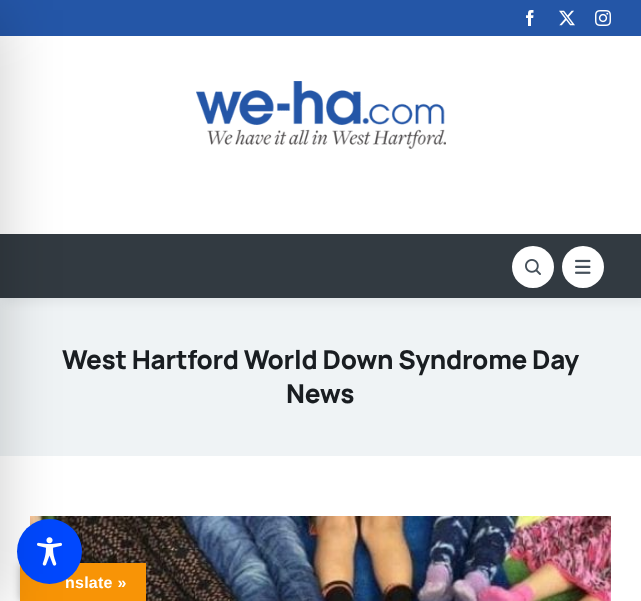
<svg xmlns="http://www.w3.org/2000/svg" width="641" height="601" viewBox="0 0 641 601">
  <rect width="100%" height="100%" fill="rgb(255,255,255)"/>
  <rect x="0" y="0" width="641" height="36" fill="rgb(36,86,167)"/>
  <image x="526" y="10" width="8" height="16" href="pic1.png"/>
  <image x="559" y="10" width="16" height="16" href="pic2.png"/>
  <image x="595" y="10" width="16" height="16" href="pic3.png"/>
  <image x="196" y="81" width="250" height="68" href="pic4.png"/>
  <rect x="0" y="298" width="641" height="158" fill="rgb(239,243,245)"/>
  <rect x="5" y="239" width="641" height="64" fill="rgba(2,3,3,0.05)" filter="blur(5px)"/>
  <rect x="0" y="234" width="641" height="64" fill="rgb(50,58,65)"/>
  <circle cx="533" cy="267" r="21" fill="rgb(255,255,255)"/>
  <image x="525" y="259" width="16" height="16" href="pic5.png"/>
  <circle cx="583" cy="267" r="21" fill="rgb(255,255,255)"/>
  <image x="575" y="259" width="16" height="15" href="pic6.png"/>
  <g font-family="Manrope" font-size="26" font-weight="800" letter-spacing="-0.25" fill="rgb(25,29,33)">
    <text x="62" y="369">West Hartford World Down Syndrome Day</text>
    <text x="286" y="403">News</text>
  </g>
  <image x="30" y="516" width="581" height="85" href="pic7.png"/>
  <rect x="20" y="563" width="126" height="38" fill="rgba(0,0,0,0.3)" filter="blur(4.5px)"/>
  <rect x="20" y="563" width="126" height="38" fill="rgb(248,148,6)"/>
  <text x="65" y="588" font-family="Liberation Sans" font-size="16" font-weight="bold" letter-spacing="0.25" fill="rgb(255,255,255)">nslate »</text>
  <circle cx="49.5" cy="551.5" r="32.5" fill="rgb(0,72,254)"/>
  <image x="37" y="537" width="25" height="29" href="pic8.png"/>
  <rect x="-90" y="10" width="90" height="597" fill="rgba(0,0,0,0.2)" filter="blur(30px)"/>
</svg>
